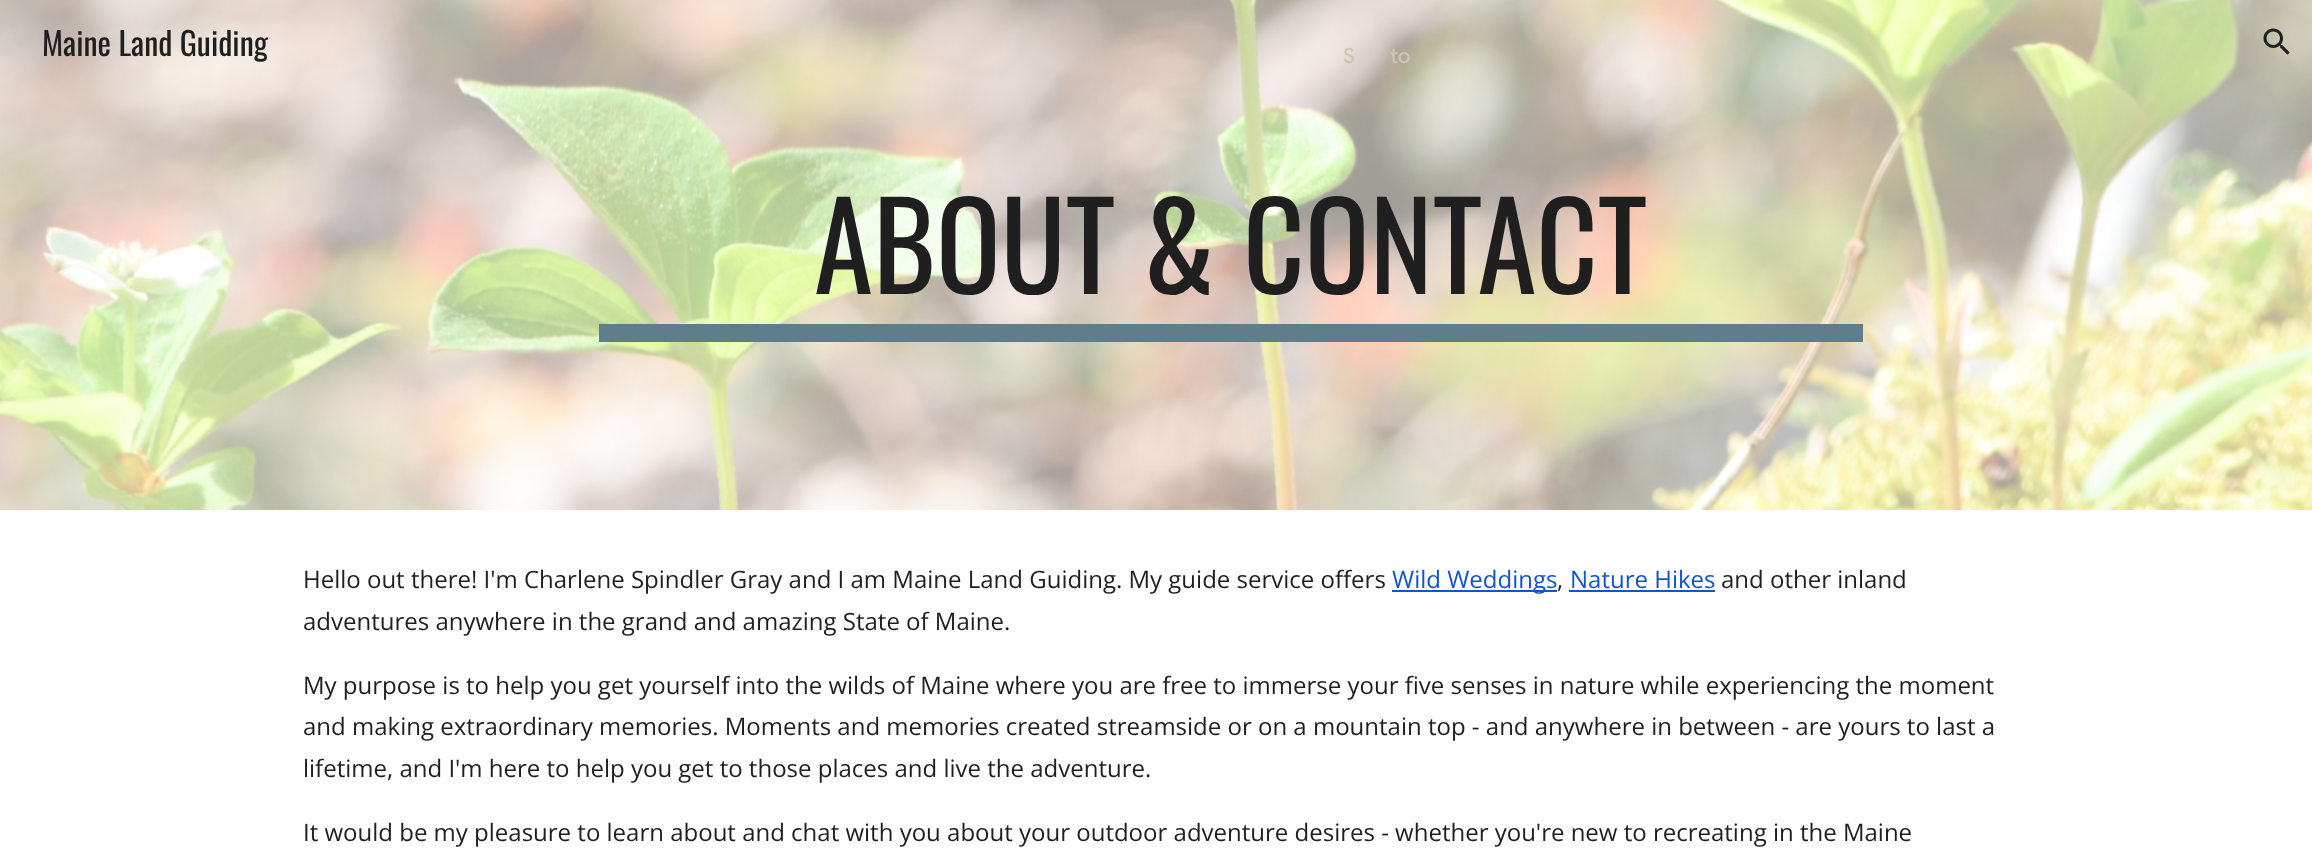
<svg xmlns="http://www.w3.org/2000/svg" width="2312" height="857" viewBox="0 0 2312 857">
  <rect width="100%" height="100%" fill="rgb(255,255,255)"/>
  <image x="0" y="0" width="2312" height="510" href="pic2.png"/>
  <text x="42" y="56" font-family="Oswald" font-size="32" fill="rgb(31,31,31)">Maine Land Guiding</text>
  <image x="2263" y="28" width="27" height="27" href="pic1.png"/>
  <text x="814" y="294" font-family="Oswald" font-size="120" fill="rgb(31,31,31)">ABOUT &amp; CONTACT</text>
  <rect x="599" y="324" width="1264" height="18" fill="rgb(96,125,139)"/>
  <text x="303" y="588" font-family="Open Sans" font-size="24" fill="rgb(31,31,31)">Hello out there! I'm Charlene Spindler Gray and I am Maine Land Guiding. My guide service offers</text>
  <rect x="1392" y="590" width="165" height="2" fill="rgb(17,85,204)"/>
  <text x="1392" y="588" font-family="Open Sans" font-size="24" fill="rgb(17,85,204)">Wild Weddings</text>
  <text x="1557" y="588" font-family="Open Sans" font-size="24" fill="rgb(31,31,31)">,</text>
  <text x="1570" y="588" font-family="Open Sans" font-size="24" fill="rgb(17,85,204)">Nature Hikes</text>
  <rect x="1569" y="590" width="146" height="2" fill="rgb(17,85,204)"/>
  <g font-family="Open Sans" font-size="24" fill="rgb(31,31,31)">
    <text x="1721" y="588">and other inland</text>
    <text x="303" y="630">adventures anywhere in the grand and amazing State of Maine.</text>
    <text>
      <tspan x="303" y="694">My purpose is to help you get yourself into the wilds of Maine where you are free to immerse your five senses in nature while experiencing the moment</tspan>
      <tspan x="303" y="735">and making extraordinary memories. Moments and memories created streamside or on a mountain top - and anywhere in between - are yours to last a</tspan>
      <tspan x="303" y="777">lifetime, and I'm here to help you get to those places and live the adventure.</tspan>
    </text>
    <text x="303" y="841">It would be my pleasure to learn about and chat with you about your outdoor adventure desires - whether you're new to recreating in the Maine</text>
  </g>
  <g font-family="Google Sans" font-size="21" font-weight="500" fill="rgb(203,198,183)">
    <text x="1343" y="63">S</text>
    <text x="1390" y="63">to</text>
  </g>
</svg>
